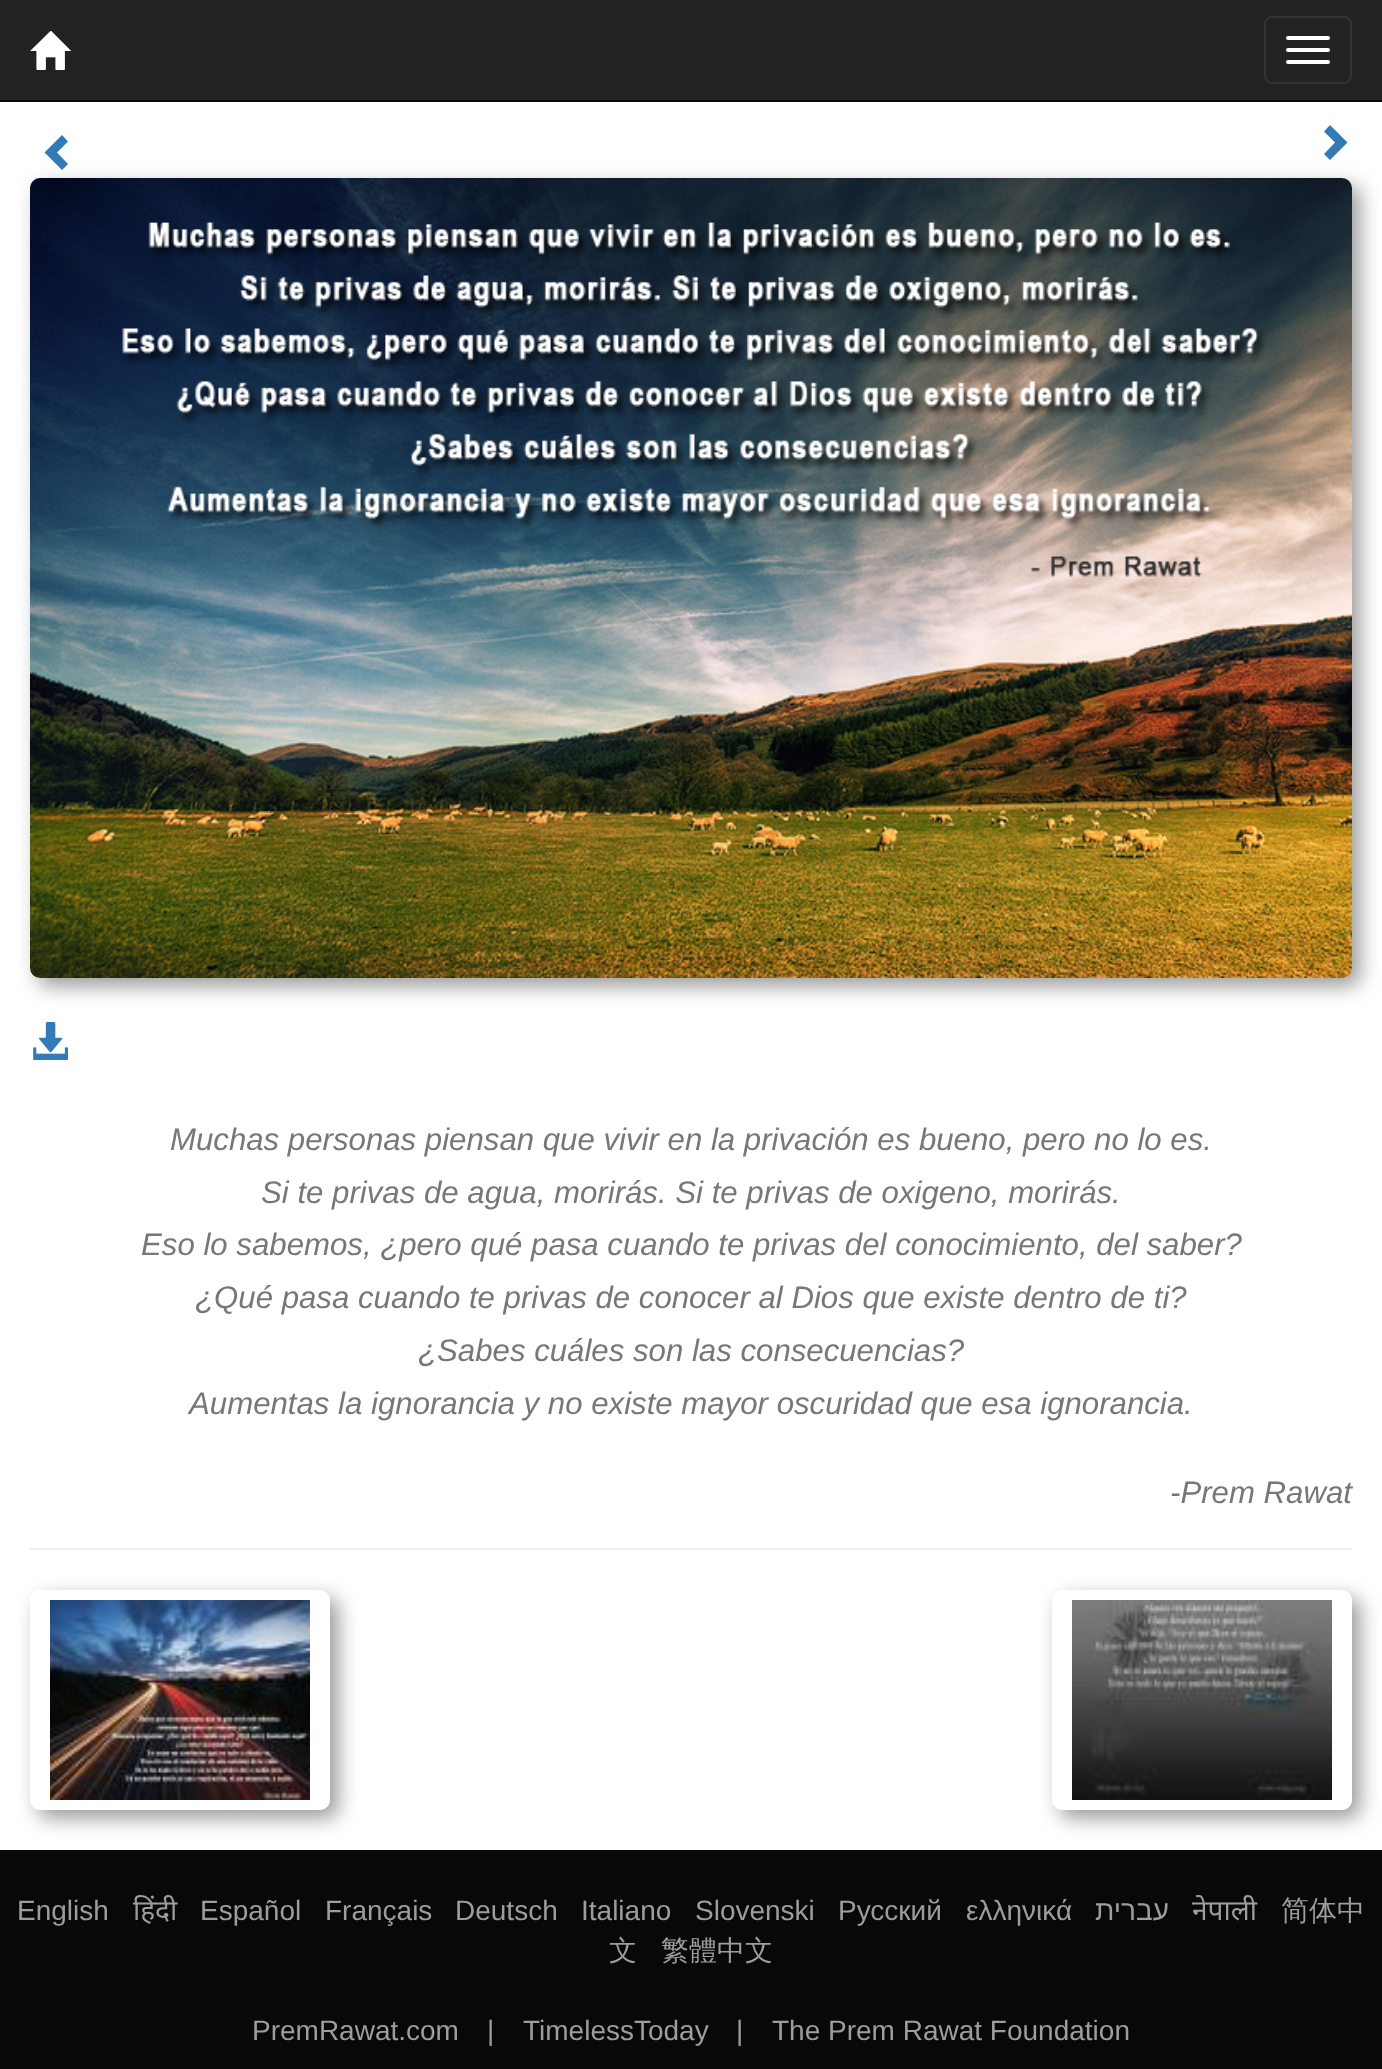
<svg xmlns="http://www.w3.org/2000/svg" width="1382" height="2069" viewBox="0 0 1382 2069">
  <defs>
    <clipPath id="clip1"><path d="M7 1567H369V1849H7ZM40 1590H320C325.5 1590 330 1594.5 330 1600V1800C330 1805.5 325.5 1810 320 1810H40C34.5 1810 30 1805.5 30 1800V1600C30 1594.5 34.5 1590 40 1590Z" clip-rule="evenodd"/></clipPath>
    <clipPath id="clip2"><path d="M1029 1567H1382V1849H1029ZM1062 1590H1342C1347.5 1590 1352 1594.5 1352 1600V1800C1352 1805.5 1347.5 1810 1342 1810H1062C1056.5 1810 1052 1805.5 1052 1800V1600C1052 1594.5 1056.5 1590 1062 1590Z" clip-rule="evenodd"/></clipPath>
  </defs>
  <rect width="100%" height="100%" fill="rgb(255,255,255)"/>
  <rect x="0" y="0" width="1382" height="100" fill="rgb(34,34,34)"/>
  <rect x="0" y="100" width="1382" height="2" fill="rgb(8,8,8)"/>
  <image x="30" y="31" width="41" height="39" href="pic1.png"/>
  <rect x="1265" y="17" width="86" height="66" rx="7" fill="none" stroke="rgb(51,51,51)" stroke-width="2"/>
  <rect x="1286" y="36" width="44" height="4" rx="2" fill="rgb(255,255,255)"/>
  <rect x="1286" y="48" width="44" height="4" rx="2" fill="rgb(255,255,255)"/>
  <rect x="1286" y="60" width="44" height="4" rx="2" fill="rgb(255,255,255)"/>
  <rect x="38" y="186" width="1322" height="800" rx="10" fill="rgb(153,153,153)" filter="blur(10px)"/>
  <path d="M68 141.5L57 152.5L68 164L62 170L44.5 152.5L62 135Z" fill="rgb(51,122,183)"/>
  <path d="M1347.5 142.5L1330 160L1324 154L1335 142.5L1324 131.5L1330 125Z" fill="rgb(51,122,183)"/>
  <image x="30" y="178" width="1322" height="800" href="pic2.png"/>
  <image x="33" y="1022" width="35" height="38" href="pic3.png"/>
  <g font-family="Liberation Sans" font-size="31.2" font-style="italic" fill="rgb(119,119,119)">
    <text x="170" y="1150">Muchas personas piensan que vivir en la privación es bueno, pero no lo es.</text>
    <text x="261" y="1203">Si te privas de agua, morirás. Si te privas de oxigeno, morirás.</text>
    <text x="141" y="1255">Eso lo sabemos, ¿pero qué pasa cuando te privas del conocimiento, del saber?</text>
    <text x="195" y="1308">¿Qué pasa cuando te privas de conocer al Dios que existe dentro de ti?</text>
    <text x="418" y="1361">¿Sabes cuáles son las consecuencias?</text>
    <text x="189" y="1414">Aumentas la ignorancia y no existe mayor oscuridad que esa ignorancia.</text>
    <text x="1170" y="1503">-Prem Rawat</text>
  </g>
  <rect x="30" y="1548" width="1322" height="2" fill="rgb(238,238,238)"/>
  <g clip-path="url(#clip1)">
    <rect x="38" y="1598" width="300" height="220" rx="10" fill="rgb(153,153,153)" filter="blur(10px)"/>
  </g>
  <image x="50" y="1600" width="260" height="200" href="pic4.png"/>
  <g clip-path="url(#clip2)">
    <rect x="1060" y="1598" width="300" height="220" rx="10" fill="rgb(153,153,153)" filter="blur(10px)"/>
  </g>
  <image x="1072" y="1600" width="260" height="200" href="pic5.png"/>
  <rect x="0" y="1850" width="1382" height="219" fill="rgb(8,8,8)"/>
  <text x="17" y="1920" font-family="Liberation Sans" font-size="28" fill="rgb(157,157,157)">English</text>
  <text x="133" y="1920" font-family="Noto Sans" font-size="28" fill="rgb(157,157,157)">हिंदी</text>
  <g font-family="Liberation Sans" font-size="28" fill="rgb(157,157,157)">
    <text x="200" y="1920">Español</text>
    <text x="325" y="1920">Français</text>
    <text x="455" y="1920">Deutsch</text>
    <text x="581" y="1920">Italiano</text>
    <text x="695" y="1920">Slovenski</text>
    <text x="838" y="1920">Русский</text>
    <text x="966" y="1920">ελληνικά</text>
  </g>
  <text x="1169" y="1920" font-family="Liberation Sans" font-size="28" direction="rtl" fill="rgb(157,157,157)">עברית</text>
  <text x="1192" y="1920" font-family="Noto Sans" font-size="28" fill="rgb(157,157,157)">नेपाली</text>
  <g font-family="WenQuanYi Zen Hei" font-size="28" font-weight="500" fill="rgb(157,157,157)">
    <text x="1281" y="1920">简体中</text>
    <text x="609" y="1960">文</text>
    <text x="661" y="1960">繁體中文</text>
  </g>
  <g font-family="Liberation Sans" font-size="28" fill="rgb(157,157,157)">
    <text x="252" y="2040">PremRawat.com</text>
    <text x="487" y="2040">|</text>
    <text x="523" y="2040">TimelessToday</text>
    <text x="736" y="2040">|</text>
    <text x="772" y="2040">The Prem Rawat Foundation</text>
  </g>
</svg>
